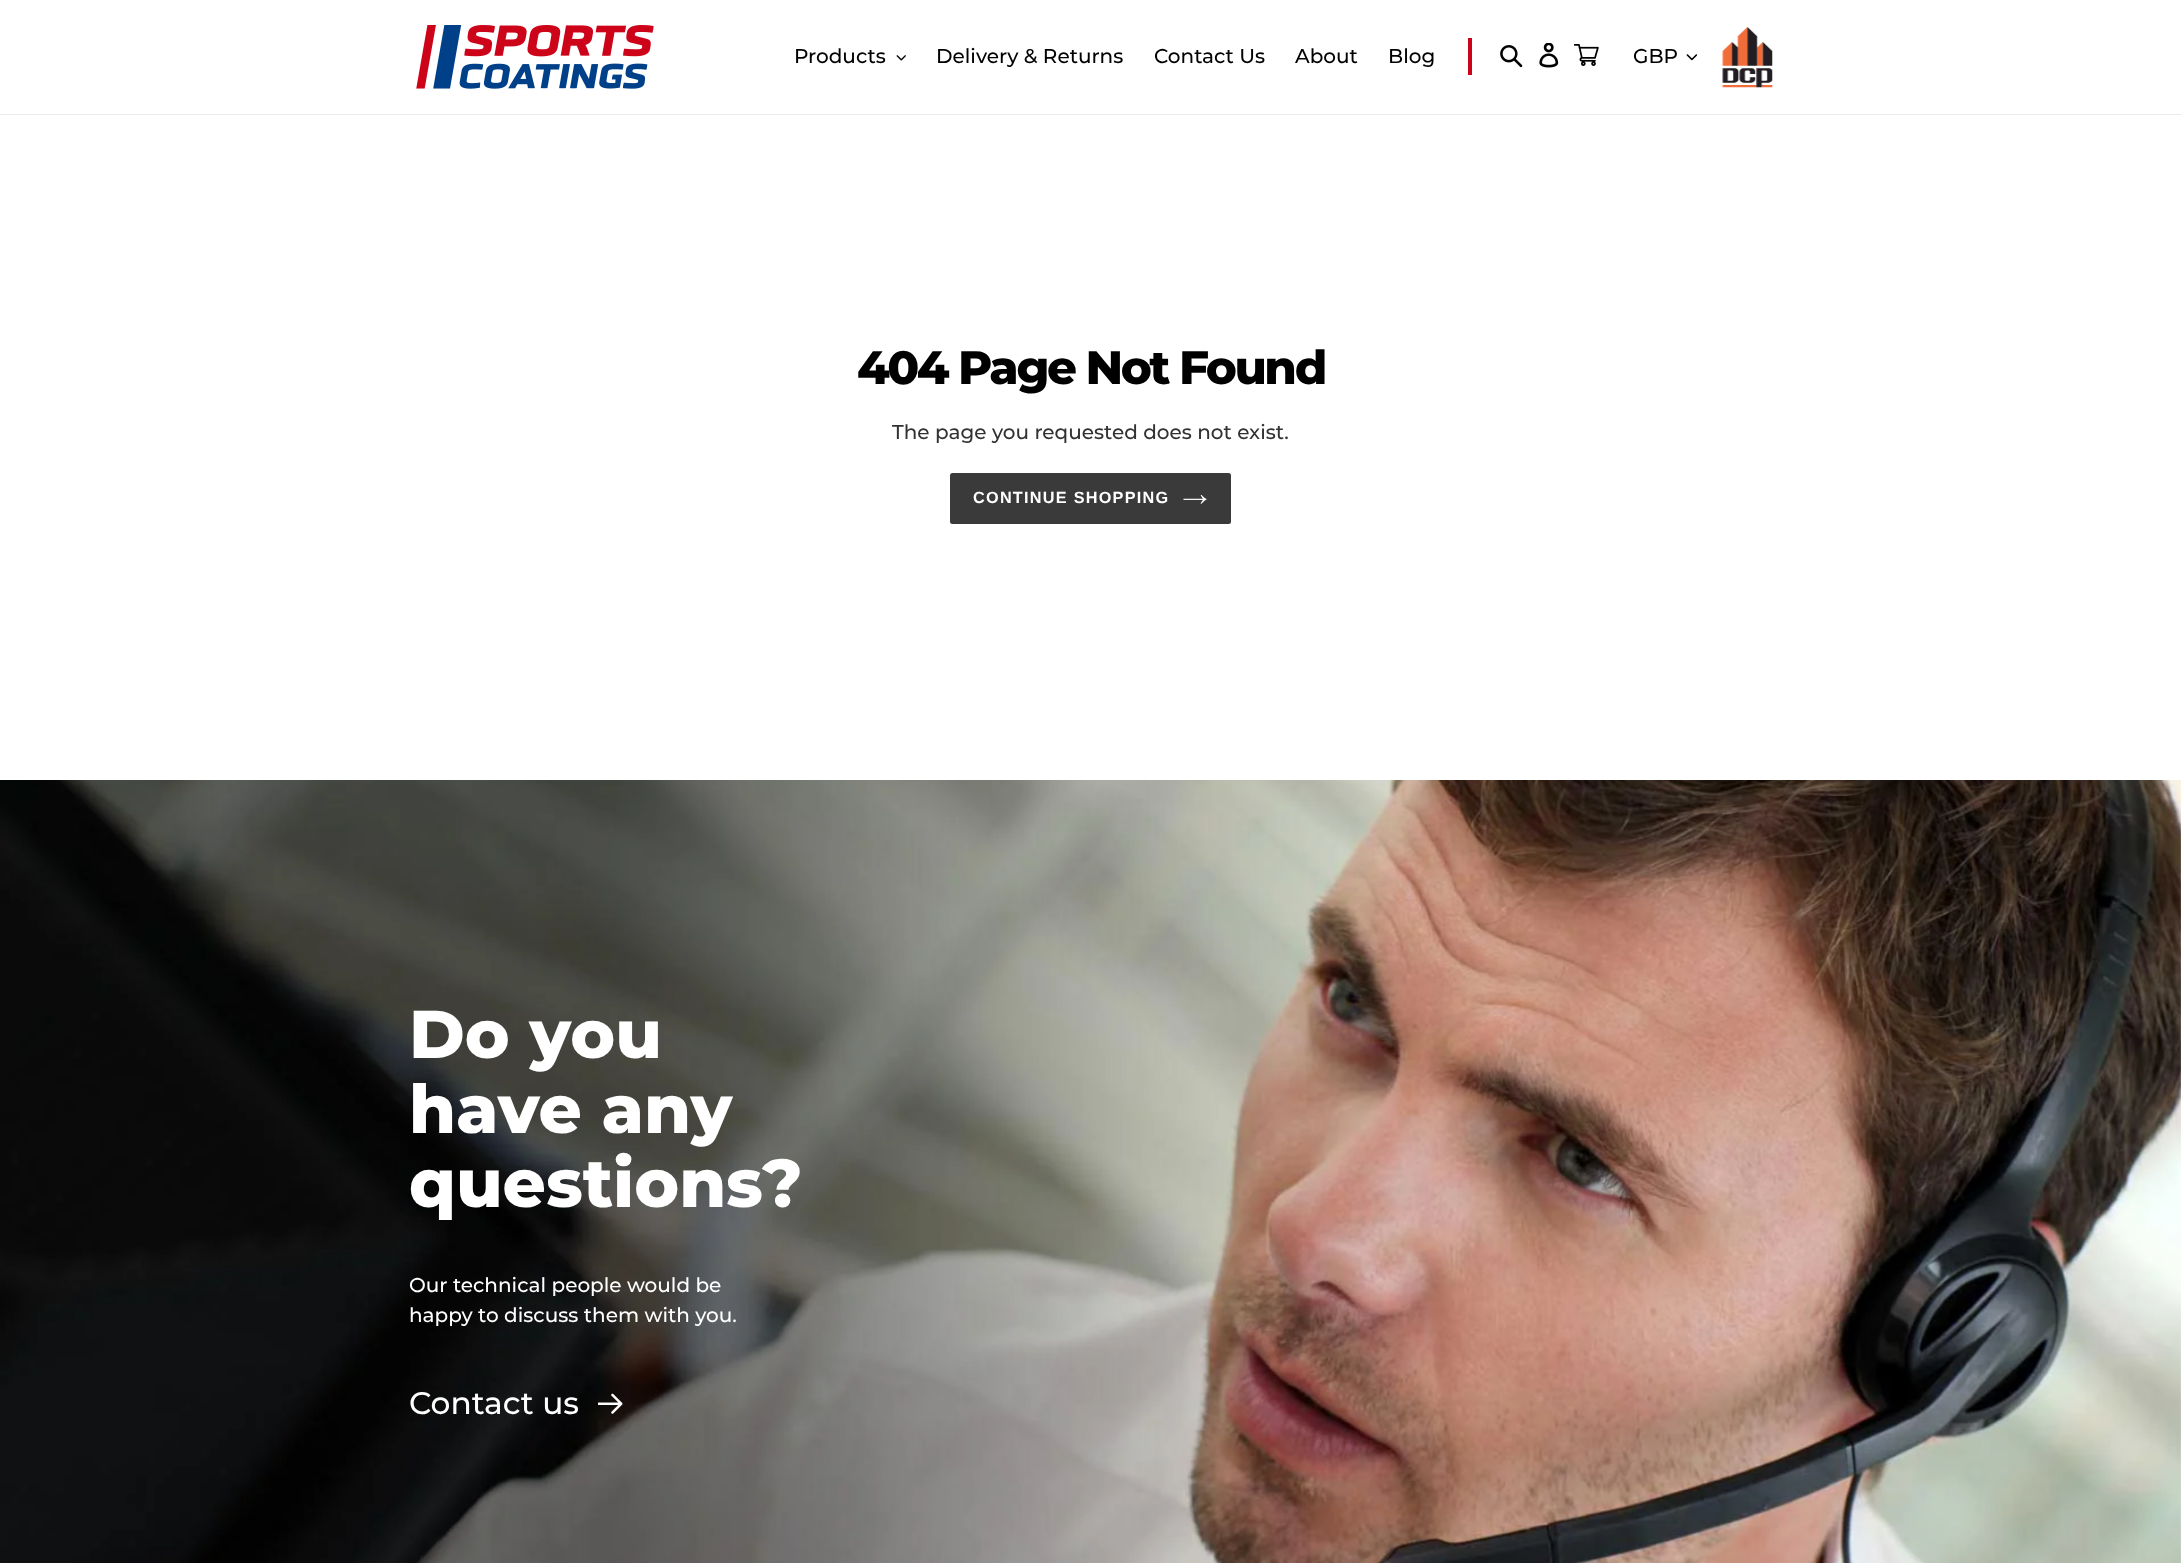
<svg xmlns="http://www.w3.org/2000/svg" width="2181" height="1563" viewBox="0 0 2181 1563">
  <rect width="100%" height="100%" fill="rgb(255,255,255)"/>
  <rect x="0" y="114" width="2181" height="1" fill="rgb(235,235,235)"/>
  <image x="416" y="25" width="238" height="64" href="pic1.png"/>
  <rect x="1468" y="38" width="4" height="37" fill="rgb(204,3,25)"/>
  <text x="794" y="63" font-family="Montserrat" font-size="20" font-weight="500" fill="rgb(0,0,0)">Products</text>
  <image x="896" y="55" width="10" height="6" href="pic2.png"/>
  <g font-family="Montserrat" font-size="20" font-weight="500" fill="rgb(0,0,0)">
    <text x="936" y="63">Delivery &amp; Returns</text>
    <text x="1154" y="63">Contact Us</text>
    <text x="1295" y="63">About</text>
    <text x="1388" y="63">Blog</text>
  </g>
  <image x="1500" y="45" width="23" height="23" href="pic3.png"/>
  <image x="1539" y="43" width="20" height="25" href="pic4.png"/>
  <image x="1574" y="44" width="25" height="22" href="pic5.png"/>
  <image x="1686" y="54" width="12" height="7" href="pic6.png"/>
  <text x="1633" y="63" font-family="Montserrat" font-size="20" font-weight="500" fill="rgb(0,0,0)">GBP</text>
  <image x="1722" y="27" width="51" height="61" href="pic7.png"/>
  <text x="857" y="384" font-family="Montserrat" font-size="46.75" font-weight="800" letter-spacing="-2.5" fill="rgb(0,0,0)">404 Page Not Found</text>
  <text x="892" y="439" font-family="Montserrat" font-size="20" font-weight="500" fill="rgb(51,50,50)">The page you requested does not exist.</text>
  <rect x="950" y="473" width="281" height="51" rx="2.5" fill="rgb(58,58,58)"/>
  <text x="973" y="503" font-family="Liberation Sans" font-size="16.25" font-weight="bold" letter-spacing="1.25" fill="rgb(255,255,255)">CONTINUE SHOPPING</text>
  <image x="1183" y="494" width="24" height="10" href="pic8.png"/>
  <image x="0" y="780" width="2181" height="783" href="pic9.png"/>
  <g font-family="Montserrat" font-size="67.5" font-weight="800" fill="rgb(255,255,255)">
    <text>
      <tspan x="409" y="1058">Do you</tspan>
      <tspan x="409" y="1133">have any</tspan>
      <tspan x="409" y="1207">questions?</tspan>
    </text>
  </g>
  <g font-family="Montserrat" font-size="20" font-weight="500" fill="rgb(255,255,255)">
    <text>
      <tspan x="409" y="1292">Our technical people would be</tspan>
      <tspan x="409" y="1322">happy to discuss them with you.</tspan>
    </text>
  </g>
  <text x="409" y="1414" font-family="Montserrat" font-size="31.25" font-weight="500" fill="rgb(255,255,255)">Contact us</text>
  <image x="598" y="1393" width="25" height="21" href="pic10.png"/>
</svg>
